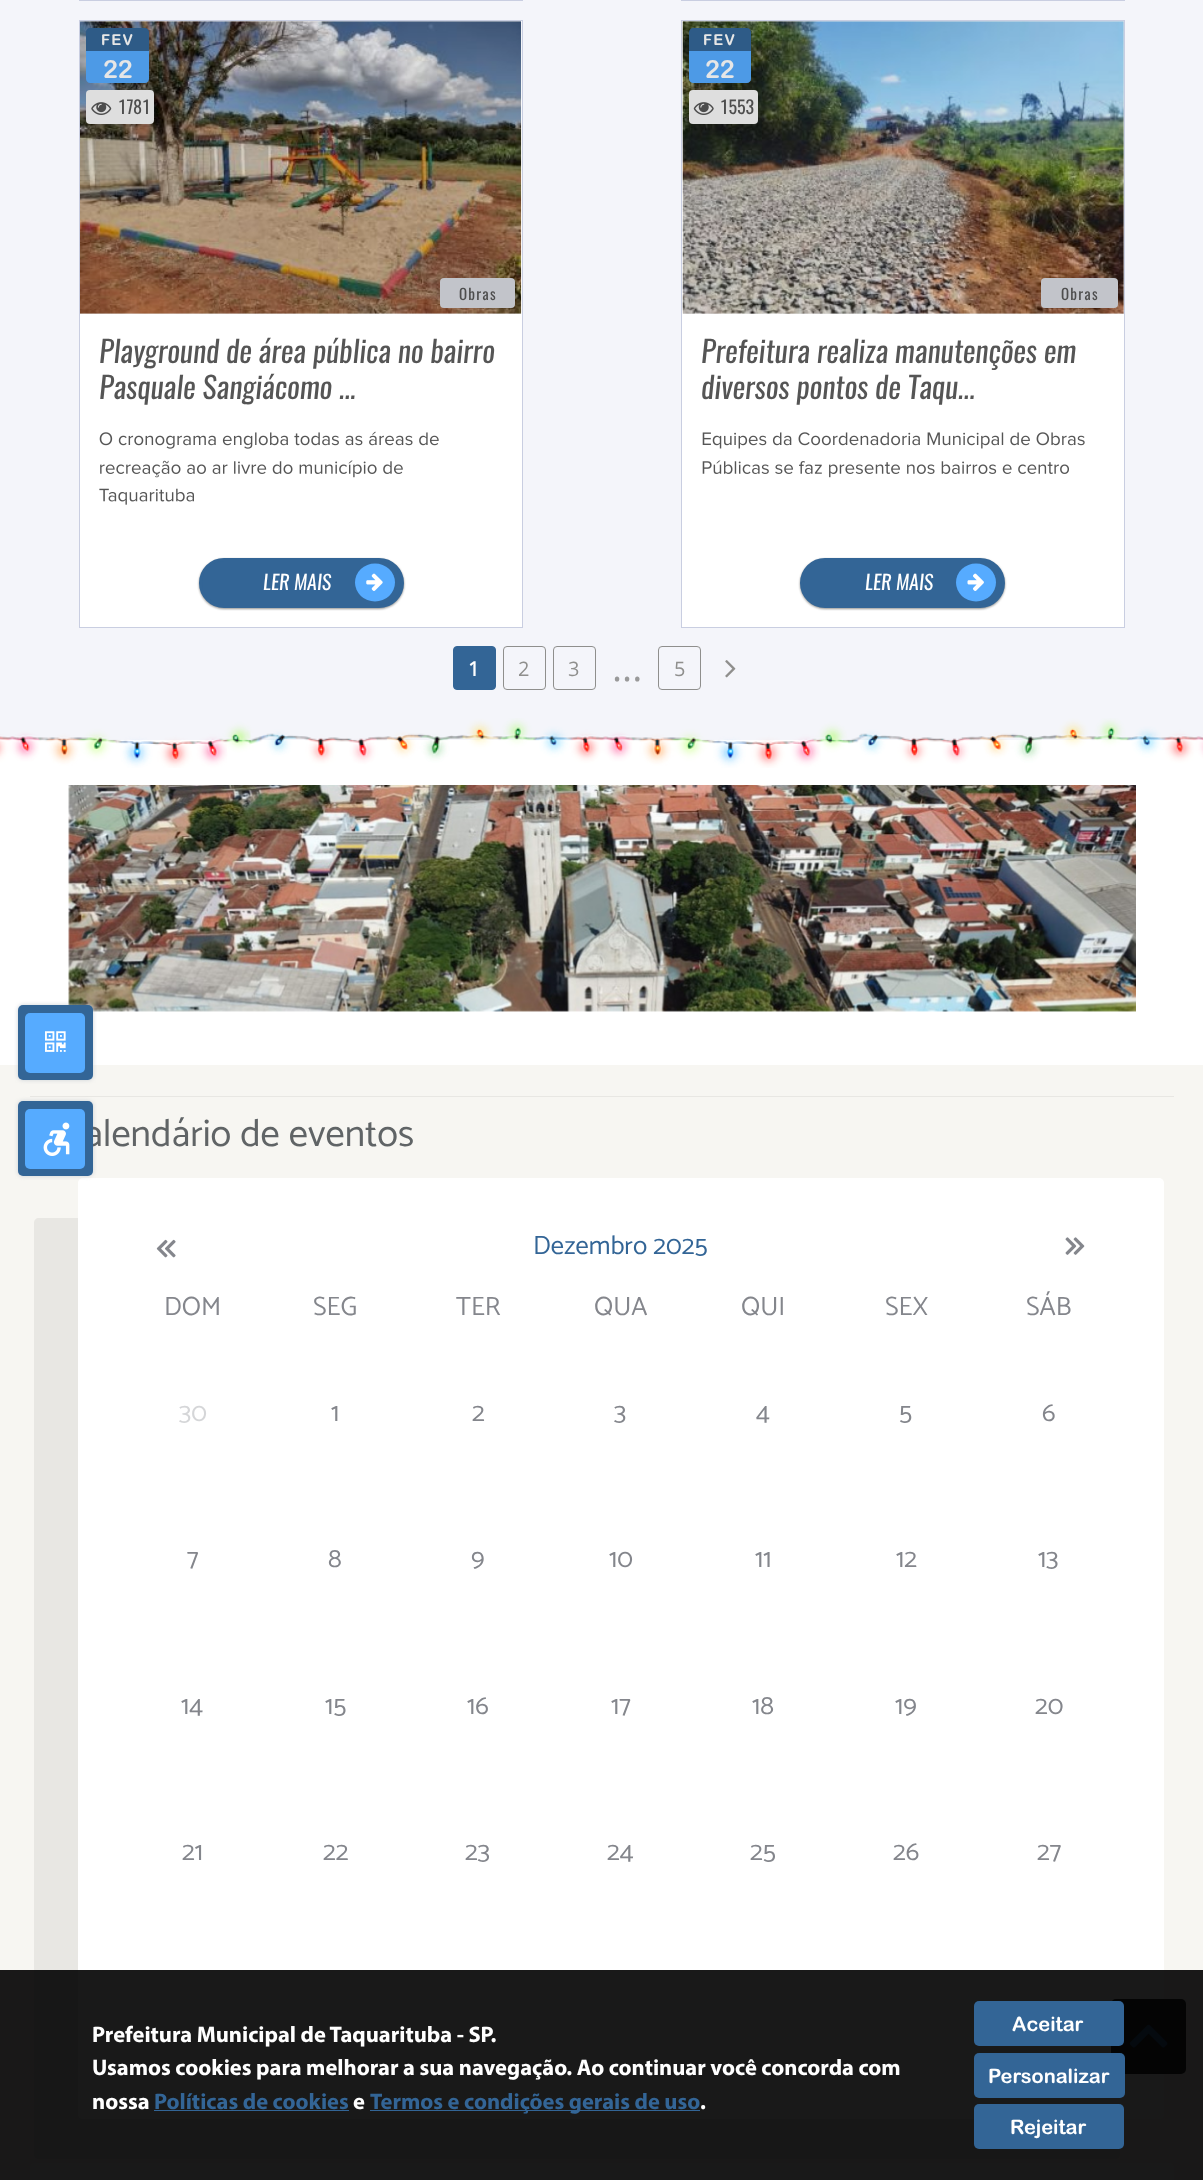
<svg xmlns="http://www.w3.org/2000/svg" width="1203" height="2180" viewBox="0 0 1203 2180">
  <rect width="100%" height="100%" fill="rgb(247,246,242)"/>
  <rect x="0" y="740" width="1203" height="325" fill="rgb(255,255,255)"/>
  <image x="68" y="785" width="1068" height="227" href="pic16.png"/>
  <rect x="18" y="1005" width="75" height="75" rx="5" fill="rgb(203,208,214)" filter="blur(2px)"/>
  <rect x="18" y="1005" width="75" height="75" rx="5" fill="rgb(51,101,150)"/>
  <rect x="25" y="1013" width="60" height="60" rx="5" fill="rgb(86,171,255)"/>
  <image x="45" y="1031" width="21" height="21" href="pic1.png"/>
  <rect x="30" y="1096" width="1144" height="1" fill="rgb(232,231,227)"/>
  <path d="M39 1218C36 1218 34 1220 34 1223V2154C34 2157 36 2159 39 2159H1115C1118 2159 1120 2157 1120 2154V2119H83C80 2119 78 2117 78 2114V1218Z" fill="rgb(232,231,227)"/>
  <rect x="78" y="1178" width="1086" height="941" rx="5" fill="rgb(255,255,255)"/>
  <rect x="18" y="1101" width="75" height="75" rx="5" fill="rgb(203,208,214)" filter="blur(2px)"/>
  <text x="84" y="1146" font-family="Catamaran" font-size="38.5" fill="rgb(96,100,102)">alendário de eventos</text>
  <rect x="18" y="1101" width="75" height="75" rx="5" fill="rgb(51,101,150)"/>
  <rect x="25" y="1109" width="60" height="60" rx="5" fill="rgb(86,171,255)"/>
  <image x="43" y="1122" width="27" height="34" href="pic2.png"/>
  <rect x="0" y="0" width="1203" height="740" fill="rgb(244,245,250)"/>
  <rect x="79.5" y="-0.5" width="443" height="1" fill="none" stroke="rgb(201,206,225)"/>
  <rect x="681.5" y="-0.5" width="443" height="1" fill="none" stroke="rgb(201,206,225)"/>
  <rect x="80" y="21" width="442" height="606" fill="rgb(255,255,255)"/>
  <rect x="80" y="21" width="441" height="293" fill="rgb(230,230,230)"/>
  <rect x="79.5" y="20.5" width="443" height="607" fill="none" stroke="rgb(201,206,225)"/>
  <image x="80" y="21" width="442" height="293" href="pic3.png"/>
  <path d="M90 28H145C147 28 149 30 149 32V51H86V32C86 30 88 28 90 28Z" fill="rgb(46,91,135)"/>
  <text x="101" y="45" font-family="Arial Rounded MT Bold" font-size="15" font-weight="bold" letter-spacing="1.25" fill="rgb(230,230,230)">FEV</text>
  <path d="M86 51H149V79C149 81 147 83 145 83H90C88 83 86 81 86 79Z" fill="rgb(77,154,230)"/>
  <text x="103" y="78" font-family="Arial Rounded MT Bold" font-size="25" font-weight="bold" fill="rgb(230,230,230)">22</text>
  <rect x="86" y="90" width="68" height="34" rx="4" fill="rgb(222,222,222)"/>
  <image x="91" y="102" width="21" height="13" href="pic4.png"/>
  <text x="118" y="114" font-family="Oswald" font-size="18" fill="rgb(77,77,77)">1781</text>
  <rect x="440" y="278" width="75" height="30" rx="4" fill="rgb(194,196,202)"/>
  <text x="459" y="300" font-family="Oswald" font-size="15" letter-spacing="1.25" fill="rgb(77,77,77)">Obras</text>
  <g font-family="Oswald" font-size="30" font-style="italic" fill="rgb(85,85,85)">
    <text>
      <tspan x="99" y="363">Playground de área pública no bairro</tspan>
      <tspan x="99" y="399">Pasquale Sangiácomo ...</tspan>
    </text>
  </g>
  <image x="99" y="431" width="340" height="18" href="pic5.png"/>
  <image x="100" y="460" width="303" height="18" href="pic6.png"/>
  <image x="99" y="488" width="95" height="17" href="pic7.png"/>
  <rect x="199" y="559" width="205" height="50" rx="25" fill="rgb(143,143,141)" filter="blur(1px)"/>
  <rect x="200.5" y="559.5" width="202" height="47" rx="23.5" fill="rgb(51,101,150)" stroke="rgb(51,101,150)" stroke-width="3"/>
  <text x="263" y="590" font-family="Oswald" font-size="20" font-style="italic" fill="rgb(255,255,255)">LER MAIS</text>
  <ellipse cx="375" cy="582.5" rx="20" ry="19" fill="rgb(86,171,255)"/>
  <image x="366" y="573" width="17" height="18" href="pic8.png"/>
  <rect x="682" y="21" width="442" height="606" fill="rgb(255,255,255)"/>
  <rect x="683" y="21" width="441" height="293" fill="rgb(230,230,230)"/>
  <rect x="681.5" y="20.5" width="443" height="607" fill="none" stroke="rgb(201,206,225)"/>
  <image x="682" y="21" width="442" height="293" href="pic9.png"/>
  <path d="M693 28H747C749 28 751 30 751 32V51H689V32C689 30 691 28 693 28Z" fill="rgb(46,91,135)"/>
  <text x="703" y="45" font-family="Arial Rounded MT Bold" font-size="15" font-weight="bold" letter-spacing="1.25" fill="rgb(230,230,230)">FEV</text>
  <path d="M689 51H751V79C751 81 749 83 747 83H693C691 83 689 81 689 79Z" fill="rgb(77,154,230)"/>
  <text x="705" y="78" font-family="Arial Rounded MT Bold" font-size="25" font-weight="bold" fill="rgb(230,230,230)">22</text>
  <rect x="689" y="90" width="69" height="34" rx="4" fill="rgb(222,222,222)"/>
  <image x="693" y="102" width="21" height="13" href="pic10.png"/>
  <text x="720" y="114" font-family="Oswald" font-size="18" fill="rgb(77,77,77)">1553</text>
  <rect x="1041" y="278" width="77" height="30" rx="4" fill="rgb(194,196,202)"/>
  <text x="1061" y="300" font-family="Oswald" font-size="15" letter-spacing="1.25" fill="rgb(77,77,77)">Obras</text>
  <g font-family="Oswald" font-size="30" font-style="italic" fill="rgb(85,85,85)">
    <text>
      <tspan x="701" y="363">Prefeitura realiza manutenções em</tspan>
      <tspan x="701" y="399">diversos pontos de Taqu...</tspan>
    </text>
  </g>
  <image x="702" y="432" width="383" height="17" href="pic11.png"/>
  <image x="702" y="460" width="367" height="18" href="pic12.png"/>
  <rect x="800" y="559" width="205" height="50" rx="25" fill="rgb(143,143,141)" filter="blur(1px)"/>
  <rect x="801.5" y="559.5" width="202" height="47" rx="23.5" fill="rgb(51,101,150)" stroke="rgb(51,101,150)" stroke-width="3"/>
  <text x="865" y="590" font-family="Oswald" font-size="20" font-style="italic" fill="rgb(255,255,255)">LER MAIS</text>
  <ellipse cx="976" cy="582.5" rx="20" ry="19" fill="rgb(86,171,255)"/>
  <image x="967" y="573" width="17" height="18" href="pic13.png"/>
  <rect x="453.5" y="646.5" width="42" height="43" rx="3.5" fill="rgb(51,101,150)" stroke="rgb(51,101,150)"/>
  <text x="468" y="676" font-family="Open Sans" font-size="20" font-weight="bold" fill="rgb(255,255,255)">1</text>
  <rect x="503.5" y="646.5" width="42" height="43" rx="3.5" fill="none" stroke="rgb(143,143,141)"/>
  <text x="518" y="676" font-family="Open Sans" font-size="20" fill="rgb(143,143,141)">2</text>
  <rect x="553.5" y="646.5" width="42" height="43" rx="3.5" fill="none" stroke="rgb(143,143,141)"/>
  <text x="568" y="676" font-family="Open Sans" font-size="20" fill="rgb(143,143,141)">3</text>
  <rect x="658.5" y="646.5" width="42" height="43" rx="3.5" fill="none" stroke="rgb(143,143,141)"/>
  <text x="674" y="676" font-family="Open Sans" font-size="20" fill="rgb(143,143,141)">5</text>
  <image x="725" y="660" width="11" height="18" href="pic14.png"/>
  <text x="612" y="681" font-family="Open Sans" font-size="38" fill="rgb(153,153,153)">...</text>
  <image x="0" y="718" width="1203" height="50" href="pic15.png"/>
  <image x="156" y="1239" width="20" height="19" href="pic17.png"/>
  <text x="533" y="1254" font-family="Catamaran" font-size="26.5" fill="rgb(51,101,150)">Dezembro 2025</text>
  <image x="1065" y="1237" width="20" height="18" href="pic18.png"/>
  <g font-family="Catamaran" font-size="26.5" fill="rgb(132,134,140)">
    <text x="164" y="1315">DOM</text>
    <text x="313" y="1315">SEG</text>
    <text x="456" y="1315">TER</text>
    <text x="594" y="1315">QUA</text>
    <text x="741" y="1315">QUI</text>
    <text x="885" y="1315">SEX</text>
    <text x="1026" y="1315">SÁB</text>
  </g>
  <text x="179" y="1421" font-family="Catamaran" font-size="26.5" fill="rgb(213,214,216)">30</text>
  <g font-family="Catamaran" font-size="26.5" fill="rgb(132,134,140)">
    <text x="331" y="1421">1</text>
    <text x="472" y="1421">2</text>
    <text x="614" y="1421">3</text>
    <text x="756" y="1421">4</text>
    <text x="899" y="1421">5</text>
    <text x="1042" y="1421">6</text>
    <text x="187" y="1567">7</text>
    <text x="328" y="1567">8</text>
    <text x="471" y="1567">9</text>
    <text x="609" y="1567">10</text>
    <text x="755" y="1567">11</text>
    <text x="896" y="1567">12</text>
    <text x="1038" y="1567">13</text>
    <text x="181" y="1714">14</text>
    <text x="325" y="1714">15</text>
    <text x="467" y="1714">16</text>
    <text x="611" y="1714">17</text>
    <text x="752" y="1714">18</text>
    <text x="895" y="1714">19</text>
    <text x="1035" y="1714">20</text>
    <text x="182" y="1860">21</text>
    <text x="323" y="1860">22</text>
    <text x="465" y="1860">23</text>
    <text x="607" y="1860">24</text>
    <text x="750" y="1860">25</text>
    <text x="893" y="1860">26</text>
    <text x="1037" y="1860">27</text>
  </g>
  <rect x="30" y="2163" width="1144" height="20" rx="5" fill="rgb(255,255,255)"/>
  <rect x="1111" y="1999" width="75" height="75" rx="5" fill="rgb(44,44,44)"/>
  <image x="1129" y="2024" width="39" height="24" href="pic19.png"/>
  <rect x="0" y="1970" width="1203" height="210" fill="rgba(0,0,0,0.9)"/>
  <g font-family="Myriad" font-size="22.5" font-weight="bold" fill="rgb(255,255,255)">
    <text>
      <tspan x="92" y="2042">Prefeitura Municipal de Taquarituba - SP.</tspan>
      <tspan x="92" y="2075">Usamos cookies para melhorar a sua navegação. Ao continuar você concorda com</tspan>
      <tspan x="92" y="2109">nossa</tspan>
    </text>
  </g>
  <text x="154" y="2109" font-family="Myriad" font-size="22.5" font-weight="bold" fill="rgb(51,101,150)">Políticas de cookies</text>
  <rect x="154" y="2110" width="195" height="1" fill="rgb(51,101,150)"/>
  <text x="353" y="2109" font-family="Myriad" font-size="22.5" font-weight="bold" fill="rgb(255,255,255)">e</text>
  <rect x="370" y="2110" width="330" height="1" fill="rgb(51,101,150)"/>
  <text x="370" y="2109" font-family="Myriad" font-size="22.5" font-weight="bold" fill="rgb(51,101,150)">Termos e condições gerais de uso</text>
  <text x="700" y="2109" font-family="Myriad" font-size="22.5" font-weight="bold" fill="rgb(255,255,255)">.</text>
  <rect x="974" y="2001" width="150" height="45" rx="5" fill="rgb(51,101,150)"/>
  <text x="1012" y="2031" font-family="Arial Rounded MT Bold" font-size="20" font-weight="bold" fill="rgb(255,255,255)">Aceitar</text>
  <rect x="974" y="2053" width="151" height="45" rx="5" fill="rgb(51,101,150)"/>
  <text x="988" y="2083" font-family="Arial Rounded MT Bold" font-size="20" font-weight="bold" fill="rgb(255,255,255)">Personalizar</text>
  <rect x="974" y="2104" width="150" height="45" rx="5" fill="rgb(51,101,150)"/>
  <text x="1010" y="2134" font-family="Arial Rounded MT Bold" font-size="20" font-weight="bold" fill="rgb(255,255,255)">Rejeitar</text>
</svg>
